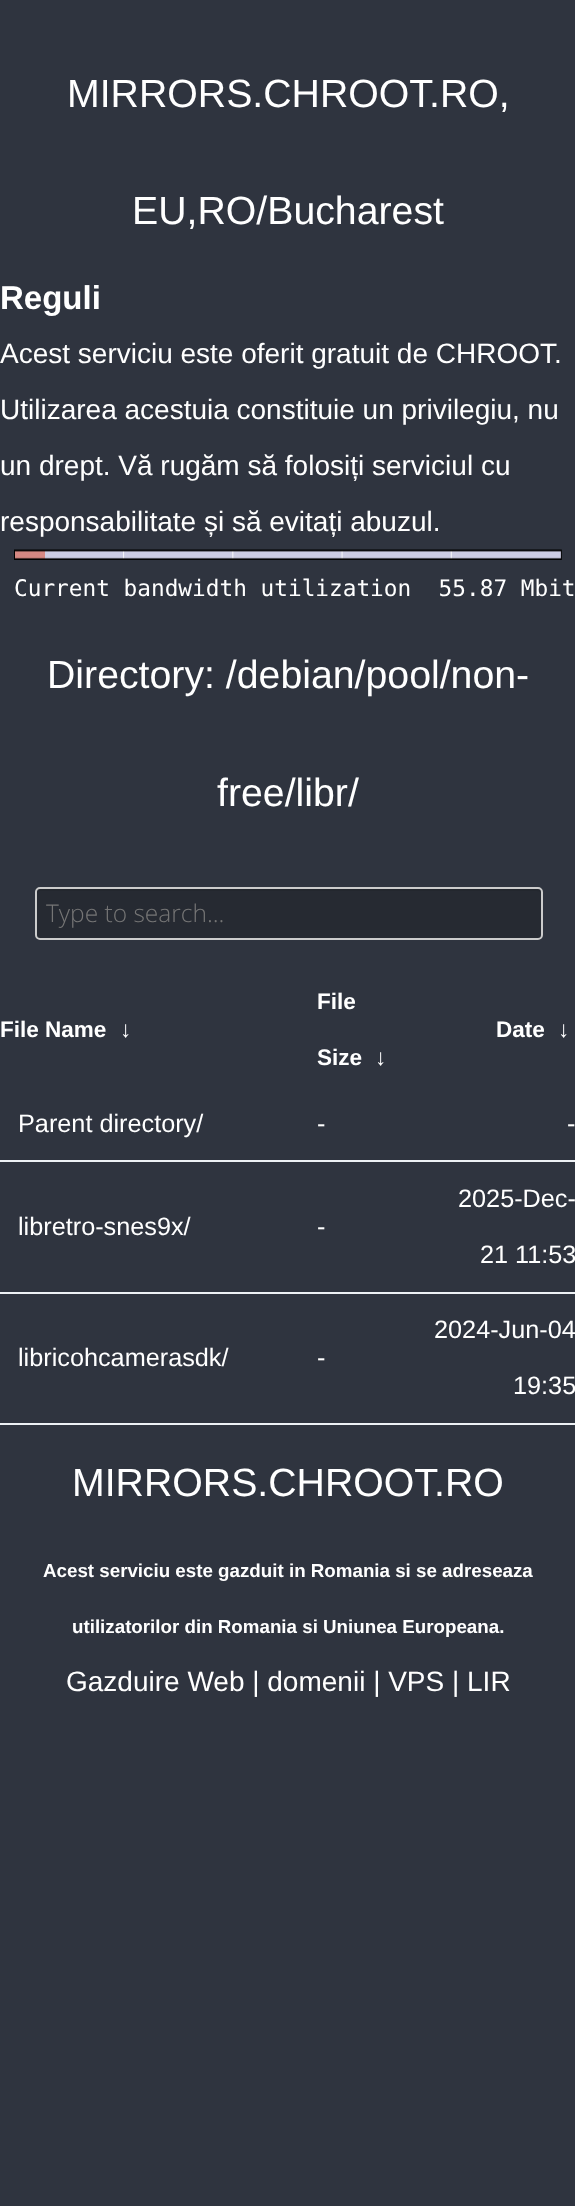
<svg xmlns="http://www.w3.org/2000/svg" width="575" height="2206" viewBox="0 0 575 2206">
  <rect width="100%" height="100%" fill="rgb(47,52,63)"/>
  <g font-family="Liberation Sans" font-size="39.25" fill="rgb(255,255,255)">
    <text x="67" y="107">MIRRORS.CHROOT.RO,</text>
    <text x="132" y="224">EU,RO/Bucharest</text>
  </g>
  <text x="0" y="309" font-family="Liberation Sans" font-size="33" font-weight="bold" fill="rgb(255,255,255)">Reguli</text>
  <g font-family="Liberation Sans" font-size="28" fill="rgb(255,255,255)">
    <text x="0" y="363">Acest serviciu este oferit gratuit de CHROOT</text>
    <text x="554" y="363">.</text>
    <text x="0" y="419">Utilizarea acestuia constituie un privilegiu, nu</text>
    <text x="0" y="475">un drept. Vă rugăm să folosiți serviciul cu</text>
    <text x="0" y="531">responsabilitate și să evitați abuzul.</text>
  </g>
  <image x="14" y="549" width="548" height="11" href="pic1.png"/>
  <text x="14" y="596" font-family="DejaVu Sans Mono" font-size="22.75" fill="rgb(255,255,255)" xml:space="preserve">Current bandwidth utilization  55.87 Mbit</text>
  <g font-family="Liberation Sans" font-size="39.25" fill="rgb(255,255,255)">
    <text x="47" y="688">Directory: /debian/pool/non-</text>
    <text x="217" y="806">free/libr/</text>
  </g>
  <rect x="35" y="887" width="508" height="53" rx="5" fill="rgb(38,42,50)"/>
  <path d="M40 891H537C539 891 541 892 541 894C541 891 540 889 537 889H41C38 889 37 891 37 894C37 892 38 891 40 891Z" fill="rgb(35,39,46)"/>
  <rect x="36" y="888" width="506" height="51" rx="4" fill="none" stroke="rgb(204,204,204)" stroke-width="2"/>
  <text x="46" y="922" font-family="Open Sans" font-size="24.5" font-weight="300" fill="rgb(117,117,117)">Type to search...</text>
  <g font-family="Liberation Sans" font-size="22.5" font-weight="bold" fill="rgb(255,255,255)">
    <text x="0" y="1037">File Name</text>
    <text x="120" y="1037">↓</text>
    <text x="317" y="1009">File</text>
    <text x="317" y="1065">Size</text>
    <text x="375" y="1065">↓</text>
    <text x="496" y="1037">Date</text>
    <text x="558" y="1037">↓</text>
  </g>
  <g font-family="Liberation Sans" font-size="25.25" fill="rgb(255,255,255)">
    <text x="18" y="1132">Parent directory/</text>
    <text x="317" y="1132">-</text>
  </g>
  <rect x="0" y="1160" width="575" height="2" fill="rgb(237,241,245)"/>
  <g font-family="Liberation Sans" font-size="25.25" fill="rgb(255,255,255)">
    <text x="567" y="1132">-</text>
    <text x="18" y="1235">libretro-snes9x/</text>
    <text x="317" y="1235">-</text>
  </g>
  <rect x="0" y="1292" width="575" height="2" fill="rgb(237,241,245)"/>
  <g font-family="Liberation Sans" font-size="25.25" fill="rgb(255,255,255)">
    <text x="458" y="1207">2025-Dec-</text>
    <text x="480" y="1263">21 11:53</text>
    <text x="18" y="1366">libricohcamerasdk/</text>
    <text x="317" y="1366">-</text>
  </g>
  <rect x="0" y="1423" width="575" height="2" fill="rgb(237,241,245)"/>
  <g font-family="Liberation Sans" font-size="25.25" fill="rgb(255,255,255)">
    <text x="434" y="1338">2024-Jun-04</text>
    <text x="513" y="1394">19:35</text>
  </g>
  <text x="72" y="1496" font-family="Liberation Sans" font-size="39.25" fill="rgb(255,255,255)">MIRRORS.CHROOT.RO</text>
  <g font-family="Liberation Sans" font-size="18.75" font-weight="bold" fill="rgb(255,255,255)">
    <text x="43" y="1577">Acest serviciu este gazduit in Romania si se adreseaza</text>
    <text x="72" y="1633">utilizatorilor din Romania si Uniunea Europeana.</text>
  </g>
  <text x="66" y="1691" font-family="Liberation Sans" font-size="28" fill="rgb(255,255,255)">Gazduire Web | domenii | VPS | LIR</text>
</svg>
